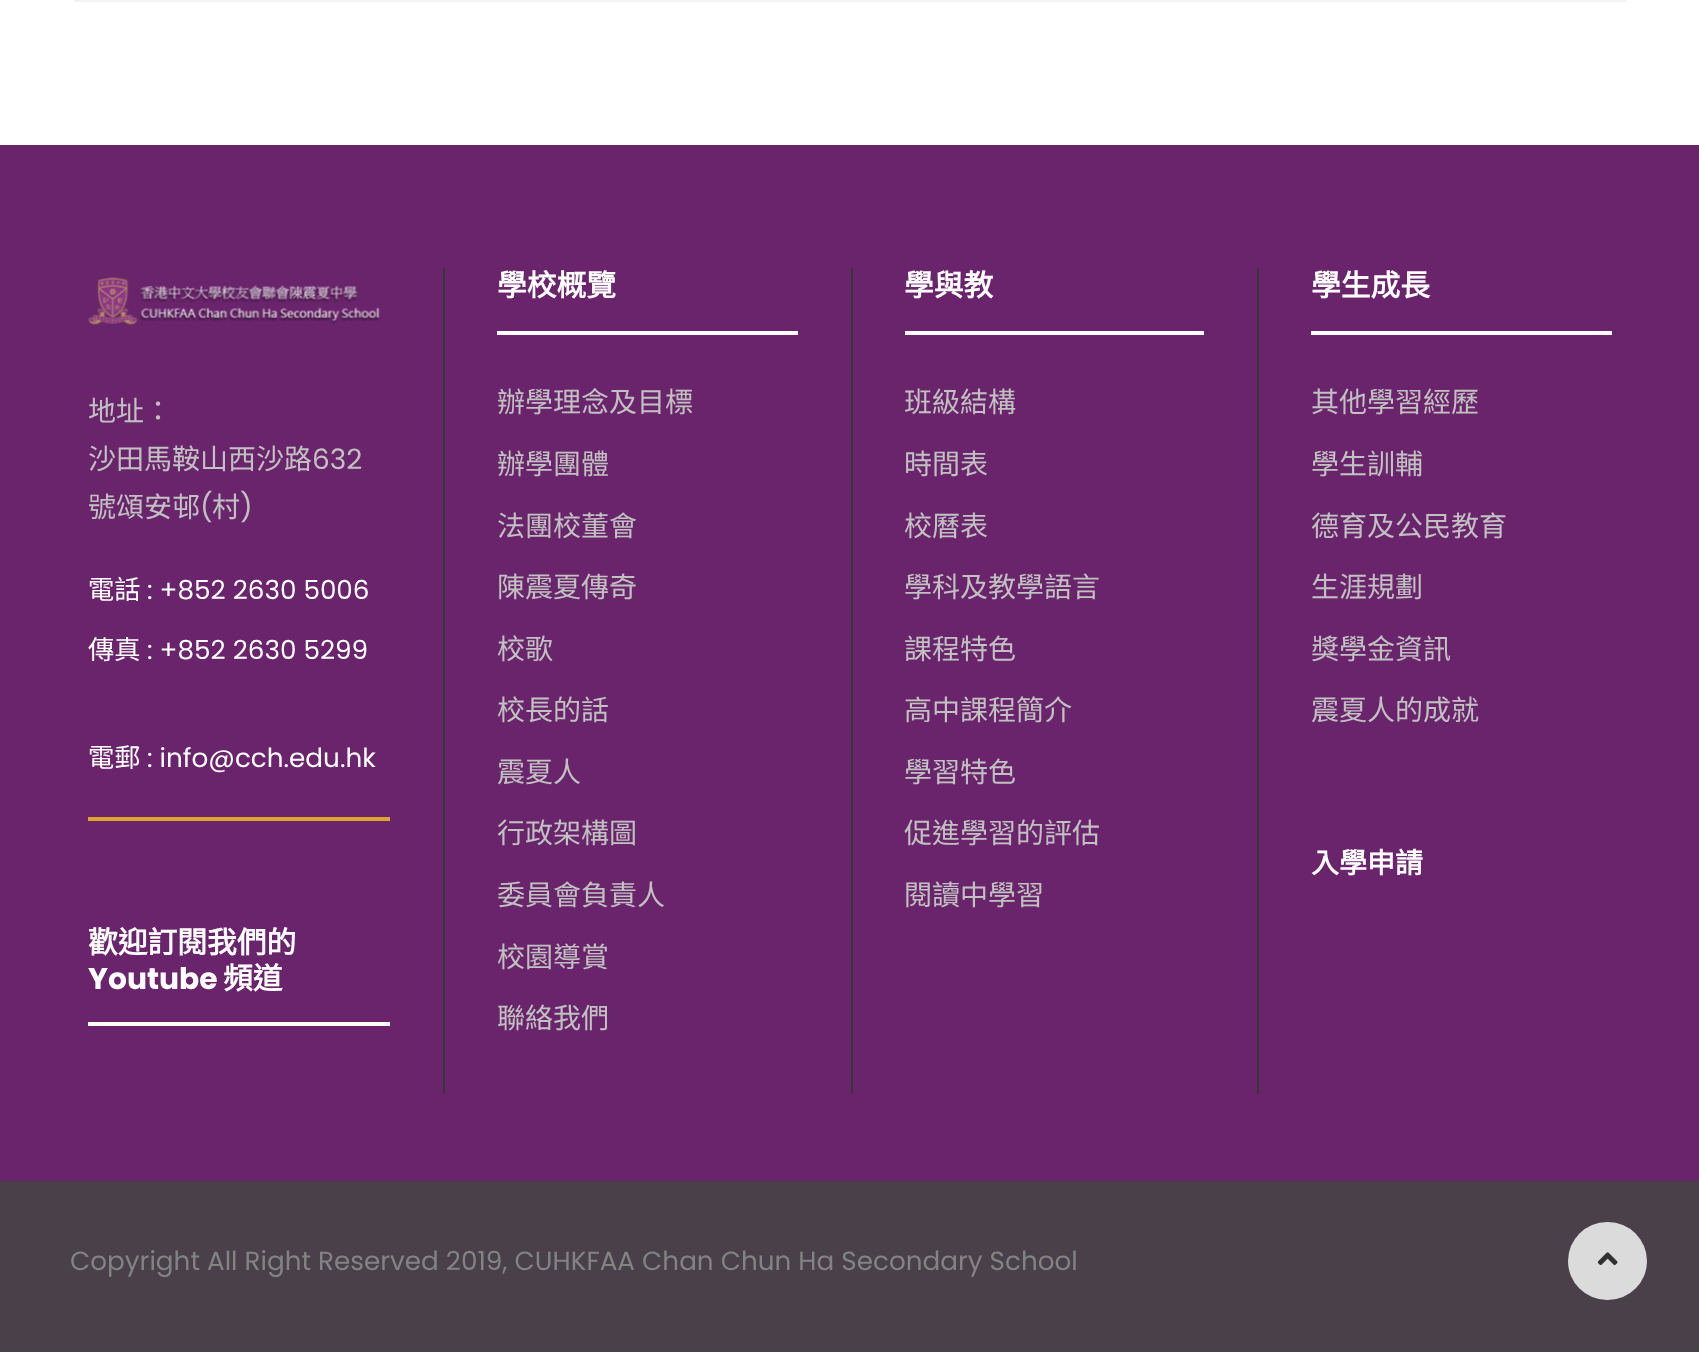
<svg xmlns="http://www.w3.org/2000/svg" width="1699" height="1352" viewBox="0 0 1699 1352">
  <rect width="100%" height="100%" fill="rgb(255,255,255)"/>
  <rect x="74" y="0" width="1552" height="2" fill="rgb(243,243,243)"/>
  <rect x="0" y="145" width="1699" height="1036" fill="rgb(105,36,107)"/>
  <image x="88" y="277" width="292" height="48" href="pic1.png"/>
  <g font-family="Noto Sans CJK HK" font-size="28" fill="rgb(193,193,193)">
    <text>
      <tspan x="88" y="421">地址：</tspan>
      <tspan x="88" y="469">沙田馬鞍山西沙路</tspan>
    </text>
  </g>
  <text x="312" y="469" font-family="Poppins" font-size="28" fill="rgb(193,193,193)">632</text>
  <text x="88" y="517" font-family="Noto Sans CJK HK" font-size="28" fill="rgb(193,193,193)">號頌安邨</text>
  <text x="200" y="517" font-family="Poppins" font-size="28" fill="rgb(193,193,193)">(</text>
  <text x="212" y="517" font-family="Noto Sans CJK HK" font-size="28" fill="rgb(193,193,193)">村</text>
  <text x="240" y="517" font-family="Poppins" font-size="28" fill="rgb(193,193,193)">)</text>
  <text x="88" y="599" font-family="Noto Sans CJK HK" font-size="26.25" fill="rgb(255,255,255)">電話</text>
  <text x="147" y="599" font-family="Poppins" font-size="26.25" fill="rgb(255,255,255)">: +852 2630 5006</text>
  <text x="88" y="659" font-family="Noto Sans CJK HK" font-size="26.25" fill="rgb(255,255,255)">傳真</text>
  <text x="147" y="659" font-family="Poppins" font-size="26.25" fill="rgb(255,255,255)">: +852 2630 5299</text>
  <text x="88" y="767" font-family="Noto Sans CJK HK" font-size="26.25" fill="rgb(255,255,255)">電郵</text>
  <text x="147" y="767" font-family="Poppins" font-size="26.25" fill="rgb(255,255,255)">: info@cch.edu.hk</text>
  <rect x="88" y="817" width="302" height="4" fill="rgb(221,165,45)"/>
  <rect x="88" y="1022" width="302" height="4" fill="rgb(255,255,255)"/>
  <text x="88" y="953" font-family="Noto Sans CJK HK" font-size="29.75" font-weight="bold" fill="rgb(255,255,255)">歡迎訂閱我們的</text>
  <text x="88" y="989" font-family="Poppins" font-size="29.75" font-weight="bold" fill="rgb(255,255,255)">Youtube</text>
  <text x="223" y="989" font-family="Noto Sans CJK HK" font-size="29.75" font-weight="bold" fill="rgb(255,255,255)">頻道</text>
  <rect x="443" y="268" width="2" height="826" fill="rgb(54,54,54)"/>
  <rect x="497" y="331" width="301" height="4" fill="rgb(255,255,255)"/>
  <text x="497" y="296" font-family="Noto Sans CJK HK" font-size="29.75" font-weight="bold" fill="rgb(255,255,255)">學校概覽</text>
  <g font-family="Noto Sans CJK HK" font-size="28" fill="rgb(193,193,193)">
    <text x="497" y="412">辦學理念及目標</text>
    <text x="497" y="474">辦學團體</text>
    <text x="497" y="536">法團校董會</text>
    <text x="497" y="597">陳震夏傳奇</text>
    <text x="497" y="659">校歌</text>
    <text x="497" y="720">校長的話</text>
    <text x="497" y="782">震夏人</text>
    <text x="497" y="843">行政架構圖</text>
    <text x="497" y="905">委員會負責人</text>
    <text x="497" y="967">校園導賞</text>
    <text x="497" y="1028">聯絡我們</text>
  </g>
  <rect x="851" y="268" width="2" height="826" fill="rgb(54,54,54)"/>
  <rect x="905" y="331" width="299" height="4" fill="rgb(255,255,255)"/>
  <text x="904" y="296" font-family="Noto Sans CJK HK" font-size="29.75" font-weight="bold" fill="rgb(255,255,255)">學與教</text>
  <g font-family="Noto Sans CJK HK" font-size="28" fill="rgb(193,193,193)">
    <text x="904" y="412">班級結構</text>
    <text x="904" y="474">時間表</text>
    <text x="904" y="536">校曆表</text>
    <text x="904" y="597">學科及教學語言</text>
    <text x="904" y="659">課程特色</text>
    <text x="904" y="720">高中課程簡介</text>
    <text x="904" y="782">學習特色</text>
    <text x="904" y="843">促進學習的評估</text>
    <text x="904" y="905">閱讀中學習</text>
  </g>
  <rect x="1257" y="268" width="2" height="826" fill="rgb(54,54,54)"/>
  <rect x="1311" y="331" width="301" height="4" fill="rgb(255,255,255)"/>
  <text x="1311" y="296" font-family="Noto Sans CJK HK" font-size="29.75" font-weight="bold" fill="rgb(255,255,255)">學生成長</text>
  <g font-family="Noto Sans CJK HK" font-size="28" fill="rgb(193,193,193)">
    <text x="1311" y="412">其他學習經歷</text>
    <text x="1311" y="474">學生訓輔</text>
    <text x="1311" y="536">德育及公民教育</text>
    <text x="1311" y="597">生涯規劃</text>
    <text x="1311" y="659">獎學金資訊</text>
    <text x="1311" y="720">震夏人的成就</text>
  </g>
  <text x="1311" y="873" font-family="Noto Sans CJK HK" font-size="28" font-weight="bold" fill="rgb(255,255,255)">入學申請</text>
  <rect x="0" y="1181" width="1699" height="171" fill="rgb(73,64,73)"/>
  <text x="70" y="1270" font-family="Poppins" font-size="26.25" fill="rgb(131,131,131)">Copyright All Right Reserved 2019, CUHKFAA Chan Chun Ha Secondary School</text>
  <rect x="1568" y="1222" width="79" height="78" rx="39" fill="rgb(219,219,219)"/>
  <image x="1597" y="1252" width="21" height="13" href="pic2.png"/>
</svg>
